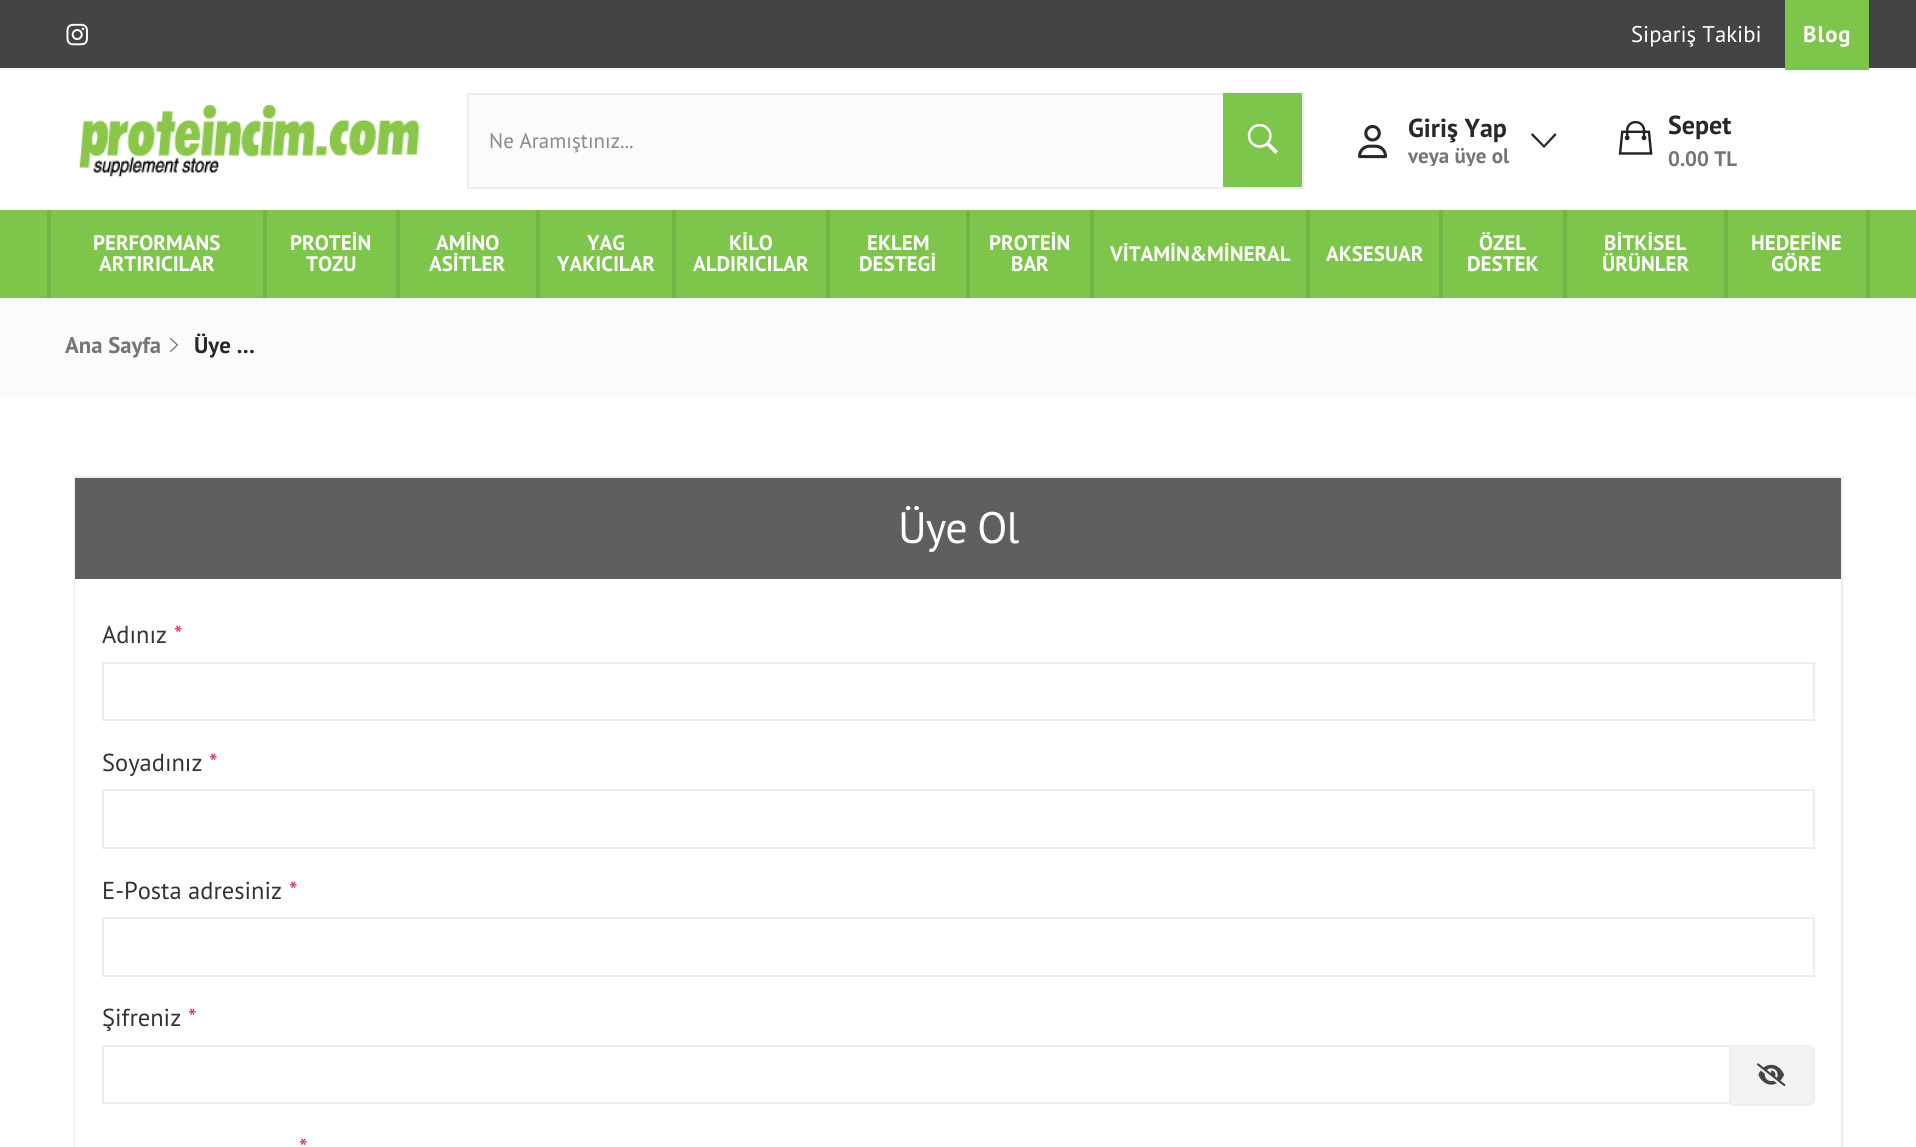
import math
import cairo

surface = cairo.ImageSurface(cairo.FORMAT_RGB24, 1916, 1147)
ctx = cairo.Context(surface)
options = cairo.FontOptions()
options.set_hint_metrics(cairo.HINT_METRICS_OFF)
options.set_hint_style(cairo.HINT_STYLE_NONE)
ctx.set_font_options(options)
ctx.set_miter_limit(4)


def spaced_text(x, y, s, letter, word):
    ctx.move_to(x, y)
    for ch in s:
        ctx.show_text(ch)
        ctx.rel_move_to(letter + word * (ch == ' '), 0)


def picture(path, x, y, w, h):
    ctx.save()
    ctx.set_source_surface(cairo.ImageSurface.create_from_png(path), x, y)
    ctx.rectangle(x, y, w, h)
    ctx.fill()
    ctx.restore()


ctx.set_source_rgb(1, 1, 1)
ctx.paint()
ctx.set_source_rgb(0.267, 0.267, 0.267)
ctx.rectangle(0, 0, 1916, 68)
ctx.fill()
ctx.set_source_rgb(0.969, 0.969, 0.969)
ctx.rectangle(0, 68, 1916, 2)
ctx.fill()
picture("img1.png", 66, 23, 22, 23)
ctx.select_font_face("PT Sans")
ctx.set_font_size(22.75)
ctx.set_source_rgb(1, 1, 1)
ctx.move_to(1631, 42)
ctx.show_text("Sipariş Takibi")
ctx.set_source_rgb(0.494, 0.773, 0.294)
ctx.rectangle(1785, 0, 84, 70)
ctx.fill()
ctx.select_font_face("PT Sans", cairo.FONT_SLANT_NORMAL, cairo.FONT_WEIGHT_BOLD)
ctx.set_source_rgb(1, 1, 1)
spaced_text(1803, 42, "Blog", 1, 0)
picture("img2.png", 78, 105, 342, 72)
ctx.rectangle(468, 94, 835, 94)
ctx.set_source_rgb(0.922, 0.929, 0.945)
ctx.stroke()
ctx.set_source_rgb(0.984, 0.984, 0.984)
ctx.rectangle(469, 95, 754, 92)
ctx.fill()
ctx.select_font_face("PT Sans")
ctx.set_font_size(21)
ctx.set_source_rgb(0.541, 0.541, 0.541)
ctx.move_to(489, 148)
ctx.show_text("Ne Aramıştınız...")
ctx.set_source_rgb(0.494, 0.773, 0.294)
ctx.rectangle(1223, 93, 79, 94)
ctx.fill()
picture("img3.png", 1247, 123, 31, 31)
picture("img4.png", 1358, 124, 30, 35)
ctx.select_font_face("PT Sans", cairo.FONT_SLANT_NORMAL, cairo.FONT_WEIGHT_BOLD)
ctx.set_font_size(26)
ctx.set_source_rgb(0.157, 0.157, 0.157)
ctx.move_to(1408, 137)
ctx.show_text("Giriş Yap")
ctx.save()
ctx.rectangle(1400, 114, 119, 52)
ctx.clip()
ctx.set_font_size(21)
ctx.set_source_rgb(0.459, 0.459, 0.459)
ctx.move_to(1408, 163)
ctx.show_text("veya üye ol")
ctx.restore()
ctx.new_path()
ctx.move_to(1555, 133)
ctx.line_to(1556.5, 135)
ctx.line_to(1544, 148)
ctx.line_to(1531, 135)
ctx.line_to(1532.5, 133)
ctx.line_to(1544, 145)
ctx.close_path()
ctx.fill()
picture("img5.png", 1618, 121, 35, 34)
ctx.move_to(1668, 134)
ctx.show_text("Sepet")
ctx.set_font_size(21)
ctx.set_source_rgb(0.459, 0.459, 0.459)
ctx.move_to(1668, 166)
ctx.show_text("0.00 TL")
ctx.set_source_rgb(0.494, 0.773, 0.294)
ctx.rectangle(0, 210, 1916, 88)
ctx.fill()
ctx.set_source_rgb(0.451, 0.71, 0.267)
ctx.rectangle(263, 210, 4, 88)
ctx.fill()
ctx.rectangle(47, 210, 4, 88)
ctx.fill()
ctx.set_source_rgb(1, 1, 1)
ctx.move_to(93, 250)
ctx.show_text("PERFORMANS")
ctx.move_to(99, 271)
ctx.show_text("ARTIRICILAR")
ctx.set_source_rgb(0.451, 0.71, 0.267)
ctx.rectangle(396, 210, 4, 88)
ctx.fill()
ctx.set_source_rgb(1, 1, 1)
ctx.move_to(290, 250)
ctx.show_text("PROTEİN")
ctx.move_to(306, 271)
ctx.show_text("TOZU")
ctx.set_source_rgb(0.451, 0.71, 0.267)
ctx.rectangle(536, 210, 4, 88)
ctx.fill()
ctx.set_source_rgb(1, 1, 1)
ctx.move_to(436, 250)
ctx.show_text("AMİNO")
ctx.move_to(429, 271)
ctx.show_text("ASİTLER")
ctx.set_source_rgb(0.451, 0.71, 0.267)
ctx.rectangle(672, 210, 4, 88)
ctx.fill()
ctx.set_source_rgb(1, 1, 1)
ctx.move_to(587, 250)
ctx.show_text("YAG")
ctx.move_to(557, 271)
ctx.show_text("YAKICILAR")
ctx.set_source_rgb(0.451, 0.71, 0.267)
ctx.rectangle(826, 210, 4, 88)
ctx.fill()
ctx.set_source_rgb(1, 1, 1)
ctx.move_to(729, 250)
ctx.show_text("KİLO")
ctx.move_to(693, 271)
ctx.show_text("ALDIRICILAR")
ctx.set_source_rgb(0.451, 0.71, 0.267)
ctx.rectangle(966, 210, 4, 88)
ctx.fill()
ctx.set_source_rgb(1, 1, 1)
ctx.move_to(867, 250)
ctx.show_text("EKLEM")
ctx.move_to(859, 271)
ctx.show_text("DESTEGİ")
ctx.set_source_rgb(0.451, 0.71, 0.267)
ctx.rectangle(1090, 210, 4, 88)
ctx.fill()
ctx.set_source_rgb(1, 1, 1)
ctx.move_to(989, 250)
ctx.show_text("PROTEİN")
ctx.move_to(1011, 271)
ctx.show_text("BAR")
ctx.set_source_rgb(0.451, 0.71, 0.267)
ctx.rectangle(1306, 210, 4, 88)
ctx.fill()
ctx.set_source_rgb(1, 1, 1)
ctx.move_to(1110, 261)
ctx.show_text("VİTAMİN&MİNERAL")
ctx.set_source_rgb(0.451, 0.71, 0.267)
ctx.rectangle(1439, 210, 4, 88)
ctx.fill()
ctx.set_source_rgb(1, 1, 1)
ctx.move_to(1326, 261)
ctx.show_text("AKSESUAR")
ctx.set_source_rgb(0.451, 0.71, 0.267)
ctx.rectangle(1563, 210, 4, 88)
ctx.fill()
ctx.set_source_rgb(1, 1, 1)
ctx.move_to(1479, 250)
ctx.show_text("ÖZEL")
ctx.move_to(1467, 271)
ctx.show_text("DESTEK")
ctx.set_source_rgb(0.451, 0.71, 0.267)
ctx.rectangle(1724, 210, 4, 88)
ctx.fill()
ctx.set_source_rgb(1, 1, 1)
ctx.move_to(1604, 250)
ctx.show_text("BİTKİSEL")
ctx.move_to(1602, 271)
ctx.show_text("ÜRÜNLER")
ctx.set_source_rgb(0.451, 0.71, 0.267)
ctx.rectangle(1866, 210, 4, 88)
ctx.fill()
ctx.set_source_rgb(1, 1, 1)
ctx.move_to(1751, 250)
ctx.show_text("HEDEFİNE")
ctx.move_to(1771, 271)
ctx.show_text("GÖRE")
ctx.set_source_rgb(0.984, 0.984, 0.984)
ctx.rectangle(0, 298, 1916, 100)
ctx.fill()
ctx.set_font_size(22.75)
ctx.set_source_rgb(0.459, 0.459, 0.459)
ctx.move_to(65, 353)
ctx.show_text("Ana Sayfa")
picture("img6.png", 169, 338, 10, 14)
ctx.set_source_rgb(0.157, 0.157, 0.157)
ctx.move_to(194, 353)
ctx.show_text("Üye …")
ctx.rectangle(75, 477, 1767, 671)
ctx.set_source_rgb(0.933, 0.933, 0.933)
ctx.stroke()
ctx.set_source_rgb(0.365, 0.373, 0.38)
ctx.rectangle(75, 478, 1766, 101)
ctx.fill()
ctx.select_font_face("PT Sans")
ctx.set_font_size(44)
ctx.set_source_rgb(1, 1, 1)
spaced_text(898, 543, "Üye Ol", -1, 0)
ctx.rectangle(75, 579, 1, 568)
ctx.fill()
ctx.set_font_size(24.5)
ctx.set_source_rgb(0.2, 0.2, 0.2)
ctx.move_to(102, 643)
ctx.show_text("Adınız")
ctx.set_source_rgb(0.8, 0.2, 0.333)
ctx.move_to(174, 643)
ctx.show_text("*")
ctx.rectangle(103, 663, 1711, 57)
ctx.set_source_rgb(0.933, 0.933, 0.933)
ctx.stroke()
ctx.set_source_rgb(0.2, 0.2, 0.2)
ctx.move_to(102, 771)
ctx.show_text("Soyadınız")
ctx.set_source_rgb(0.8, 0.2, 0.333)
ctx.move_to(209, 771)
ctx.show_text("*")
ctx.rectangle(103, 790, 1711, 58)
ctx.set_source_rgb(0.933, 0.933, 0.933)
ctx.stroke()
ctx.set_source_rgb(0.2, 0.2, 0.2)
ctx.move_to(102, 899)
ctx.show_text("E-Posta adresiniz")
ctx.set_source_rgb(0.8, 0.2, 0.333)
ctx.move_to(289, 899)
ctx.show_text("*")
ctx.rectangle(103, 918, 1711, 58)
ctx.set_source_rgb(0.933, 0.933, 0.933)
ctx.stroke()
ctx.set_source_rgb(0.2, 0.2, 0.2)
ctx.move_to(102, 1026)
ctx.show_text("Şifreniz")
ctx.set_source_rgb(0.8, 0.2, 0.333)
ctx.move_to(188, 1026)
ctx.show_text("*")
ctx.rectangle(103, 1046, 1627, 57)
ctx.set_source_rgb(0.933, 0.933, 0.933)
ctx.stroke()
ctx.set_source_rgb(0.953, 0.949, 0.949)
ctx.new_path()
ctx.move_to(1731, 1045)
ctx.line_to(1808, 1045)
ctx.curve_to(1812, 1045, 1815, 1048, 1815, 1052)
ctx.line_to(1815, 1099)
ctx.curve_to(1815, 1103, 1812, 1106, 1808, 1106)
ctx.line_to(1731, 1106)
ctx.close_path()
ctx.fill()
ctx.set_source_rgb(0.933, 0.933, 0.933)
ctx.set_fill_rule(cairo.FILL_RULE_EVEN_ODD)
ctx.new_path()
ctx.move_to(1731, 1045)
ctx.line_to(1808, 1045)
ctx.curve_to(1812, 1045, 1815, 1048, 1815, 1052)
ctx.line_to(1815, 1099)
ctx.curve_to(1815, 1103, 1812, 1106, 1808, 1106)
ctx.line_to(1731, 1106)
ctx.close_path()
ctx.move_to(1731, 1046)
ctx.line_to(1808, 1046)
ctx.curve_to(1811, 1046, 1813, 1049, 1813, 1052)
ctx.line_to(1813, 1099)
ctx.curve_to(1813, 1102, 1811, 1104, 1808, 1104)
ctx.line_to(1731, 1104)
ctx.close_path()
ctx.fill()
picture("img7.png", 1757, 1063, 29, 23)
ctx.set_source_rgb(0.8, 0.2, 0.333)
ctx.move_to(299, 1156)
ctx.show_text("*")
surface.write_to_png("page.png")
